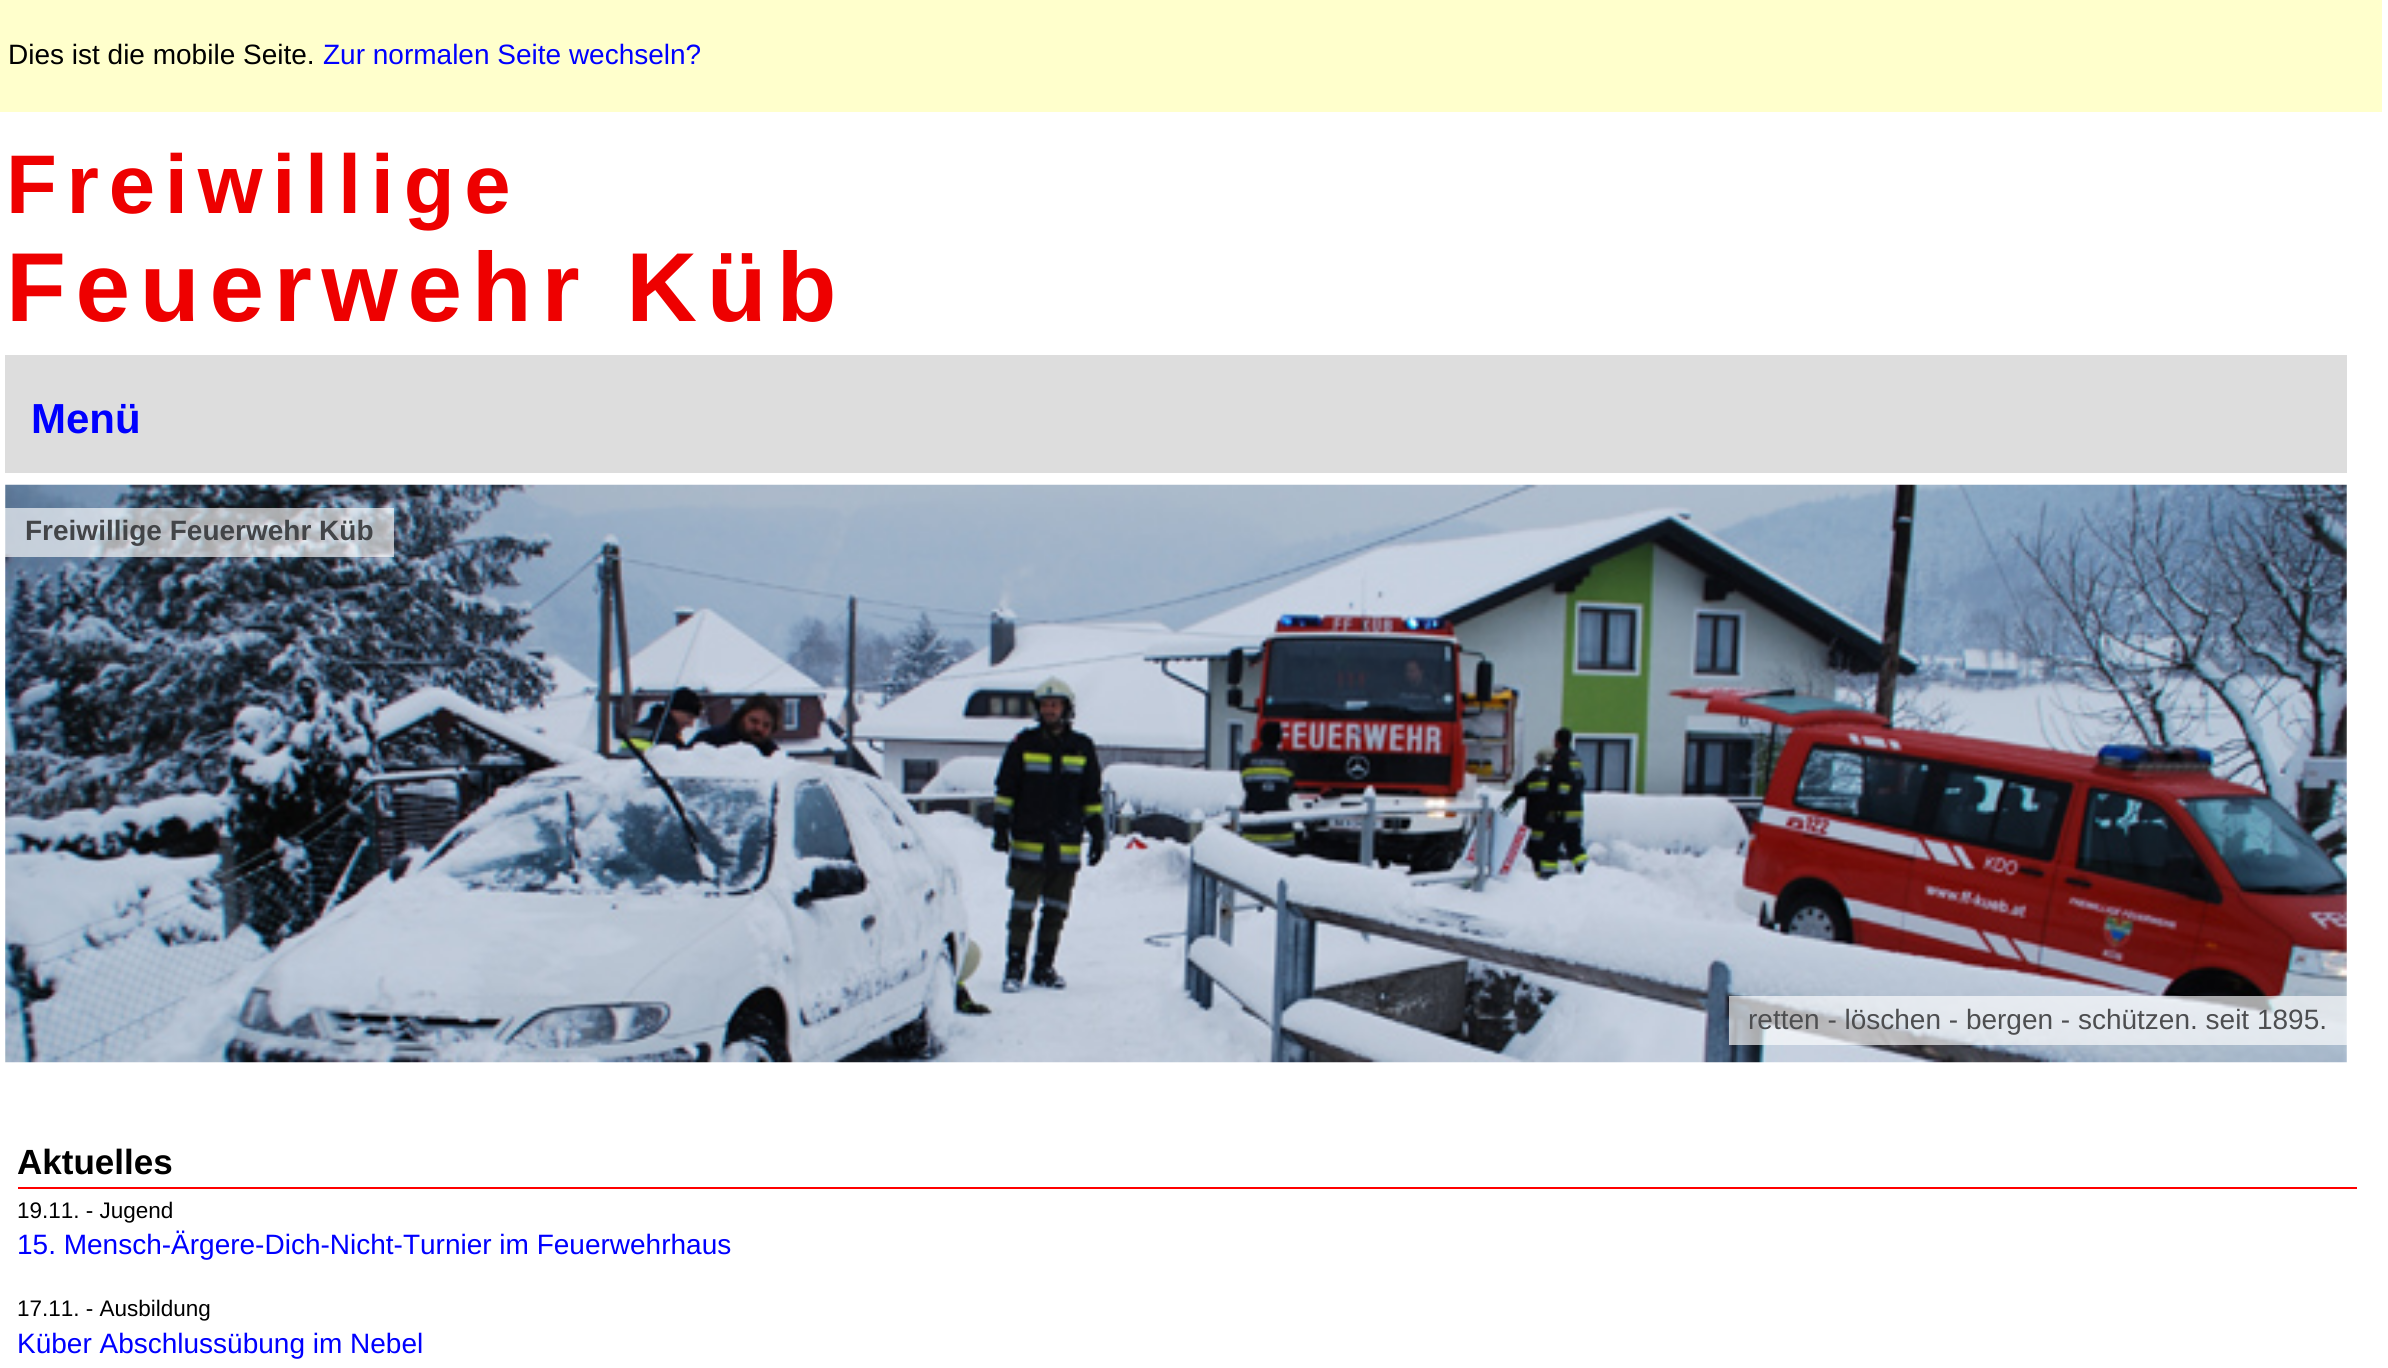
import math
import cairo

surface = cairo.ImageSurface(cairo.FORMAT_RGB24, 2388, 1368)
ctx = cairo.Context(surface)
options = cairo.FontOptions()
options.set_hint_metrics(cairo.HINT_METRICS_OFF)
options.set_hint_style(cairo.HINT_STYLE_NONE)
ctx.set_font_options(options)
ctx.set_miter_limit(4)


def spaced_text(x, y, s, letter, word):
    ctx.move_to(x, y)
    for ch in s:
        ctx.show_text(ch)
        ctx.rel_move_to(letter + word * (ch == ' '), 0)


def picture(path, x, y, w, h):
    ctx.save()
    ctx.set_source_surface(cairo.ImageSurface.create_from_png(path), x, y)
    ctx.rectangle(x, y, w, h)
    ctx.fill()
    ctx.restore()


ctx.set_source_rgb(1, 1, 1)
ctx.paint()
ctx.set_source_rgb(1, 1, 0.8)
ctx.rectangle(0, 0, 2382, 112)
ctx.fill()
ctx.select_font_face("Liberation Sans")
ctx.set_font_size(28)
ctx.set_source_rgb(0, 0, 0)
ctx.move_to(8, 64)
ctx.show_text("Dies ist die mobile Seite.")
ctx.set_source_rgb(0, 0, 1)
ctx.move_to(323, 64)
ctx.show_text("Zur normalen Seite wechseln?")
ctx.select_font_face("Liberation Sans", cairo.FONT_SLANT_NORMAL, cairo.FONT_WEIGHT_BOLD)
ctx.set_font_size(83.25)
ctx.set_source_rgb(0.933, 0, 0)
spaced_text(6, 213, "Freiwillige", 9.75, 0)
ctx.set_font_size(98)
spaced_text(6, 321, "Feuerwehr Küb", 9.75, 0)
ctx.set_source_rgb(0.867, 0.867, 0.867)
ctx.rectangle(5, 355, 2342, 118)
ctx.fill()
ctx.set_font_size(42)
ctx.set_source_rgb(0, 0, 1)
ctx.move_to(31, 433)
ctx.show_text("Menü")
picture("img1.png", 5, 484, 2342, 579)
ctx.set_source_rgba(1, 1, 1, 0.65)
ctx.rectangle(5, 508, 389, 49)
ctx.fill()
ctx.set_font_size(28)
ctx.set_source_rgb(0.263, 0.271, 0.282)
ctx.move_to(25, 540)
ctx.show_text("Freiwillige Feuerwehr Küb")
ctx.set_source_rgba(1, 1, 1, 0.65)
ctx.rectangle(1729, 996, 618, 49)
ctx.fill()
ctx.select_font_face("Liberation Sans")
ctx.set_source_rgb(0.302, 0.306, 0.314)
ctx.move_to(1748, 1029)
ctx.show_text("retten - löschen - bergen - schützen. seit 1895.")
ctx.set_source_rgb(1, 0, 0)
ctx.rectangle(18, 1187, 2339, 2)
ctx.fill()
ctx.select_font_face("Liberation Sans", cairo.FONT_SLANT_NORMAL, cairo.FONT_WEIGHT_BOLD)
ctx.set_font_size(35)
ctx.set_source_rgb(0, 0, 0)
ctx.move_to(17, 1174)
ctx.show_text("Aktuelles")
ctx.select_font_face("Liberation Sans")
ctx.set_font_size(22.5)
ctx.move_to(17, 1218)
ctx.show_text("19.11. - Jugend")
ctx.set_font_size(28)
ctx.set_source_rgb(0, 0, 1)
ctx.move_to(17, 1254)
ctx.show_text("15. Mensch-Ärgere-Dich-Nicht-Turnier im Feuerwehrhaus")
ctx.set_font_size(22.5)
ctx.set_source_rgb(0, 0, 0)
ctx.move_to(17, 1316)
ctx.show_text("17.11. - Ausbildung")
ctx.set_font_size(28)
ctx.set_source_rgb(0, 0, 1)
ctx.move_to(17, 1353)
ctx.show_text("Küber Abschlussübung im Nebel")
surface.write_to_png("page.png")
